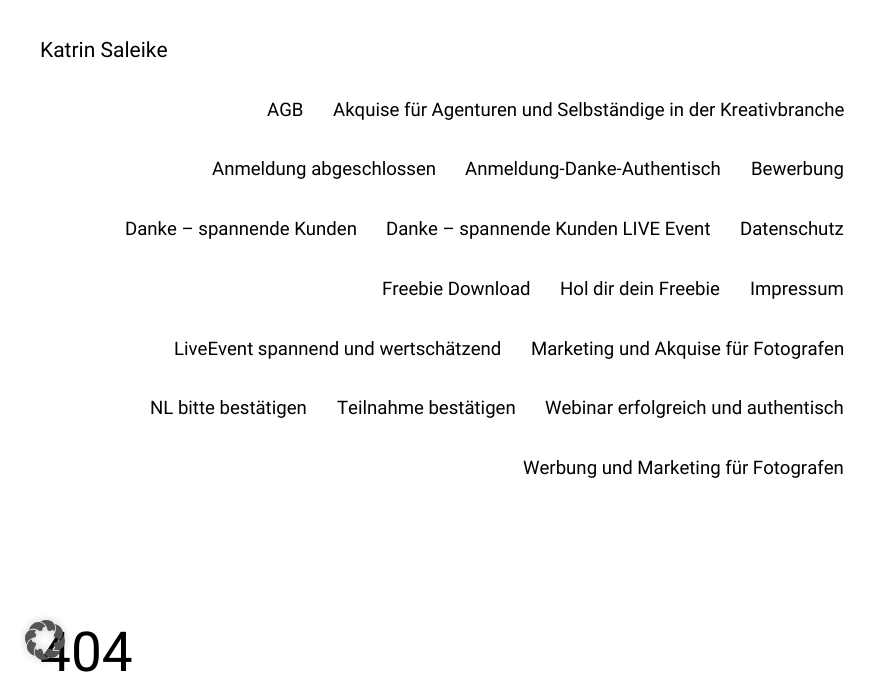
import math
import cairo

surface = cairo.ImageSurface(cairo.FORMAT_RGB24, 883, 684)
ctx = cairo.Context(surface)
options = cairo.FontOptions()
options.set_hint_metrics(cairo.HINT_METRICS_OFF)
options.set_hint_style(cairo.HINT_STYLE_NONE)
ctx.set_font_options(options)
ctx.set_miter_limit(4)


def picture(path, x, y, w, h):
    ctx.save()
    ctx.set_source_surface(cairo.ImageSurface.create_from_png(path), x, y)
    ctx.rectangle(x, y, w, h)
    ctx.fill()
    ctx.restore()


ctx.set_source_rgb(1, 1, 1)
ctx.paint()
ctx.select_font_face("Roboto")
ctx.set_font_size(21)
ctx.set_source_rgb(0, 0, 0)
ctx.move_to(40, 57)
ctx.show_text("Katrin Saleike")
ctx.set_font_size(18.6)
ctx.move_to(267, 116)
ctx.show_text("AGB")
ctx.move_to(333, 116)
ctx.show_text("Akquise für Agenturen und Selbständige in der Kreativbranche")
ctx.move_to(212, 175)
ctx.show_text("Anmeldung abgeschlossen")
ctx.move_to(465, 175)
ctx.show_text("Anmeldung-Danke-Authentisch")
ctx.move_to(751, 175)
ctx.show_text("Bewerbung")
ctx.move_to(125, 235)
ctx.show_text("Danke – spannende Kunden")
ctx.move_to(386, 235)
ctx.show_text("Danke – spannende Kunden LIVE Event")
ctx.move_to(740, 235)
ctx.show_text("Datenschutz")
ctx.move_to(382, 295)
ctx.show_text("Freebie Download")
ctx.move_to(560, 295)
ctx.show_text("Hol dir dein Freebie")
ctx.move_to(750, 295)
ctx.show_text("Impressum")
ctx.move_to(174, 355)
ctx.show_text("LiveEvent spannend und wertschätzend")
ctx.move_to(531, 355)
ctx.show_text("Marketing und Akquise für Fotografen")
ctx.move_to(150, 414)
ctx.show_text("NL bitte bestätigen")
ctx.move_to(337, 414)
ctx.show_text("Teilnahme bestätigen")
ctx.move_to(545, 414)
ctx.show_text("Webinar erfolgreich und authentisch")
ctx.move_to(523, 474)
ctx.show_text("Werbung und Marketing für Fotografen")
ctx.set_font_size(55)
ctx.move_to(40, 671)
ctx.show_text("404")
picture("img1.png", 20, 615, 50, 50)
surface.write_to_png("page.png")
